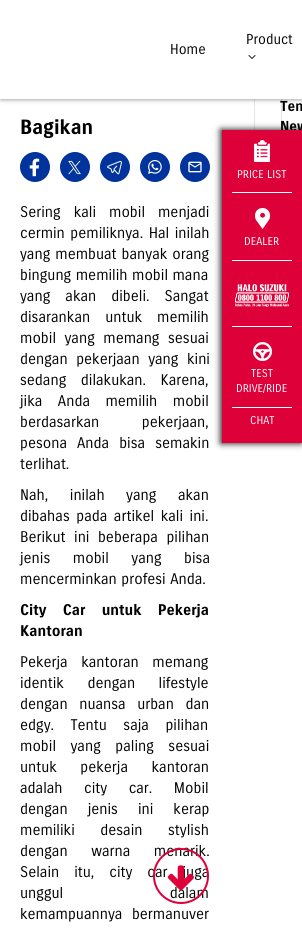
import math
import cairo

surface = cairo.ImageSurface(cairo.FORMAT_RGB24, 302, 933)
ctx = cairo.Context(surface)
options = cairo.FontOptions()
options.set_hint_metrics(cairo.HINT_METRICS_OFF)
options.set_hint_style(cairo.HINT_STYLE_NONE)
ctx.set_font_options(options)
ctx.set_miter_limit(4)


def spaced_text(x, y, s, letter, word):
    ctx.move_to(x, y)
    for ch in s:
        ctx.show_text(ch)
        ctx.rel_move_to(letter + word * (ch == ' '), 0)


def round_rect(x, y, w, h, r):
    ctx.new_sub_path()
    for i, (u, v) in enumerate([(x + w - r, y + h - r), (x + r, y + h - r), (x + r, y + r), (x + w - r, y + r)]):
        ctx.arc(u, v, r, i * math.pi / 2, (i + 1) * math.pi / 2)
    ctx.close_path()


def shadow(x, y, w, h, r, blur, alpha):
    ctx.push_group_with_content(cairo.CONTENT_ALPHA)
    ctx.set_operator(cairo.OPERATOR_SOURCE)
    for i in range(15, -16, -2):
        e = blur * i / 6
        if min(w, h) + 2 * e > 0:
            ctx.set_source_rgba(0, 0, 0, alpha * math.erfc((i - 1) / 8.5) / 2)
            round_rect(x - e, y - e, w + 2 * e, h + 2 * e, max(0, min(r + e + blur * .6, min(w, h) / 2 + e)))
            ctx.fill()
    ctx.mask(ctx.pop_group())


def picture(path, x, y, w, h):
    ctx.save()
    ctx.set_source_surface(cairo.ImageSurface.create_from_png(path), x, y)
    ctx.rectangle(x, y, w, h)
    ctx.fill()
    ctx.restore()


ctx.set_source_rgb(1, 1, 1)
ctx.paint()
ctx.rectangle(254.5, -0.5, 27, 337)
ctx.set_source_rgb(0.89, 0.894, 0.91)
ctx.set_line_width(1)
ctx.stroke()
ctx.set_source_rgb(0, 0, 0)
shadow(1, 0, 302, 99, 0, 2.5, 0.5)
ctx.set_source_rgb(1, 1, 1)
ctx.rectangle(0, 0, 302, 99)
ctx.fill()
ctx.select_font_face("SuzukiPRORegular")
ctx.set_font_size(14)
ctx.set_source_rgb(0, 0, 0)
ctx.move_to(246, 44)
ctx.show_text("Product")
ctx.new_path()
ctx.move_to(255, 55.5)
ctx.line_to(252, 58.5)
ctx.line_to(249, 55.5)
ctx.set_source_rgb(0.2, 0.2, 0.2)
ctx.set_line_width(1.1)
ctx.set_line_cap(cairo.LINE_CAP_ROUND)
ctx.set_line_join(cairo.LINE_JOIN_ROUND)
ctx.stroke()
ctx.set_source_rgb(0, 0, 0)
ctx.move_to(170, 54)
ctx.show_text("Home")
ctx.select_font_face("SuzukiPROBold", cairo.FONT_SLANT_NORMAL, cairo.FONT_WEIGHT_BOLD)
ctx.set_font_size(20)
ctx.move_to(20, 134)
ctx.show_text("Bagikan")
ctx.set_source_rgb(0, 0.2, 0.608)
ctx.new_path()
ctx.arc(35, 167, 15, 0, 2 * math.pi)
ctx.fill()
picture("img1.png", 29, 158, 11, 19)
ctx.arc(75, 167, 15, 0, 2 * math.pi)
ctx.fill()
picture("img2.png", 68, 160, 13, 15)
ctx.arc(115, 167, 15, 0, 2 * math.pi)
ctx.fill()
picture("img3.png", 107, 160, 15, 15)
ctx.arc(155, 167, 15, 0, 2 * math.pi)
ctx.fill()
picture("img4.png", 148, 160, 14, 14)
ctx.arc(195, 167, 15, 0, 2 * math.pi)
ctx.fill()
picture("img5.png", 188, 161, 14, 12)
ctx.select_font_face("SuzukiPRORegular")
ctx.set_font_size(15)
ctx.set_source_rgb(0, 0, 0)
spaced_text(20, 217, "Sering kali mobil menjadi", 0, 8.5)
spaced_text(20, 238, "cermin pemiliknya. Hal inilah", 0, 1)
spaced_text(20, 259, "yang membuat banyak orang", 0, 0.5)
ctx.move_to(20, 280)
ctx.show_text("bingung memilih mobil mana")
spaced_text(20, 301, "yang akan dibeli. Sangat", 0, 10.5)
spaced_text(20, 322, "disarankan untuk memilih", 0, 10.5)
spaced_text(20, 343, "mobil yang memang sesuai", 0, 4)
spaced_text(20, 364, "dengan pekerjaan yang kini", 0, 4)
spaced_text(20, 385, "sedang dilakukan. Karena,", 0, 10)
spaced_text(20, 406, "jika Anda memilih mobil", 0, 11)
spaced_text(20, 427, "berdasarkan pekerjaan,", 0, 38)
spaced_text(20, 448, "pesona Anda bisa semakin", 0, 5.5)
ctx.move_to(20, 469)
ctx.show_text("terlihat.")
spaced_text(20, 500, "Nah, inilah yang akan", 0, 17)
spaced_text(20, 521, "dibahas pada artikel kali ini.", 0, 2)
spaced_text(20, 542, "Berikut ini beberapa pilihan", 0, 4)
spaced_text(20, 563, "jenis mobil yang bisa", 0, 18)
ctx.move_to(20, 584)
ctx.show_text("mencerminkan profesi Anda.")
ctx.select_font_face("SuzukiPROBold", cairo.FONT_SLANT_NORMAL, cairo.FONT_WEIGHT_BOLD)
spaced_text(20, 615, "City Car untuk Pekerja", 0, 12)
ctx.move_to(20, 636)
ctx.show_text("Kantoran")
ctx.select_font_face("SuzukiPRORegular")
spaced_text(20, 667, "Pekerja kantoran memang", 0, 9)
spaced_text(20, 688, "identik dengan lifestyle", 0, 19)
spaced_text(20, 709, "dengan nuansa urban dan", 0, 7)
spaced_text(20, 730, "edgy. Tentu saja pilihan", 0, 12)
spaced_text(20, 751, "mobil yang paling sesuai", 0, 10)
spaced_text(20, 772, "untuk pekerja kantoran", 0, 19)
spaced_text(20, 793, "adalah city car. Mobil", 0, 17)
spaced_text(20, 814, "dengan jenis ini kerap", 0, 15.5)
spaced_text(20, 835, "memiliki desain stylish", 0, 21)
spaced_text(20, 856, "dengan warna menarik.", 0, 19)
spaced_text(20, 877, "Selain itu, city car juga", 0, 10.5)
spaced_text(20, 898, "unggul dalam", 0, 102)
spaced_text(20, 919, "kemampuannya bermanuver", 0, 5)
ctx.select_font_face("SuzukiPROBold", cairo.FONT_SLANT_NORMAL, cairo.FONT_WEIGHT_BOLD)
ctx.set_font_size(14)
ctx.move_to(280, 111)
ctx.show_text("Ten")
ctx.move_to(280, 131)
ctx.show_text("New")
ctx.new_path()
ctx.arc(181, 876, 27, 0, 2 * math.pi)
ctx.set_source_rgb(0.871, 0, 0.224)
ctx.set_line_width(2)
ctx.set_line_cap(cairo.LINE_CAP_BUTT)
ctx.set_line_join(cairo.LINE_JOIN_MITER)
ctx.stroke()
picture("img6.png", 167, 865, 27, 26)
ctx.set_source_rgb(0, 0, 0)
shadow(221, 130, 80, 313, 0, 3.5, 1)
ctx.set_source_rgb(0.871, 0, 0.224)
ctx.rectangle(222, 130, 80, 313)
ctx.fill()
picture("img7.png", 254, 140, 16, 22)
ctx.select_font_face("SuzukiPRORegular")
ctx.set_font_size(11)
ctx.set_source_rgb(1, 1, 1)
ctx.move_to(237, 178)
ctx.show_text("PRICE LIST")
ctx.rectangle(232, 192, 60, 1)
ctx.fill()
picture("img8.png", 255, 208, 15, 21)
ctx.move_to(244, 245)
ctx.show_text("DEALER")
ctx.rectangle(232, 260, 60, 1)
ctx.fill()
picture("img9.png", 235, 284, 54, 24)
ctx.rectangle(232, 326, 60, 1)
ctx.fill()
picture("img10.png", 253, 342, 19, 19)
ctx.move_to(251, 377)
ctx.show_text("TEST")
ctx.move_to(236, 392)
ctx.show_text("DRIVE/RIDE")
ctx.rectangle(232, 407, 60, 1)
ctx.fill()
ctx.move_to(250, 424)
ctx.show_text("CHAT")
surface.write_to_png("page.png")
